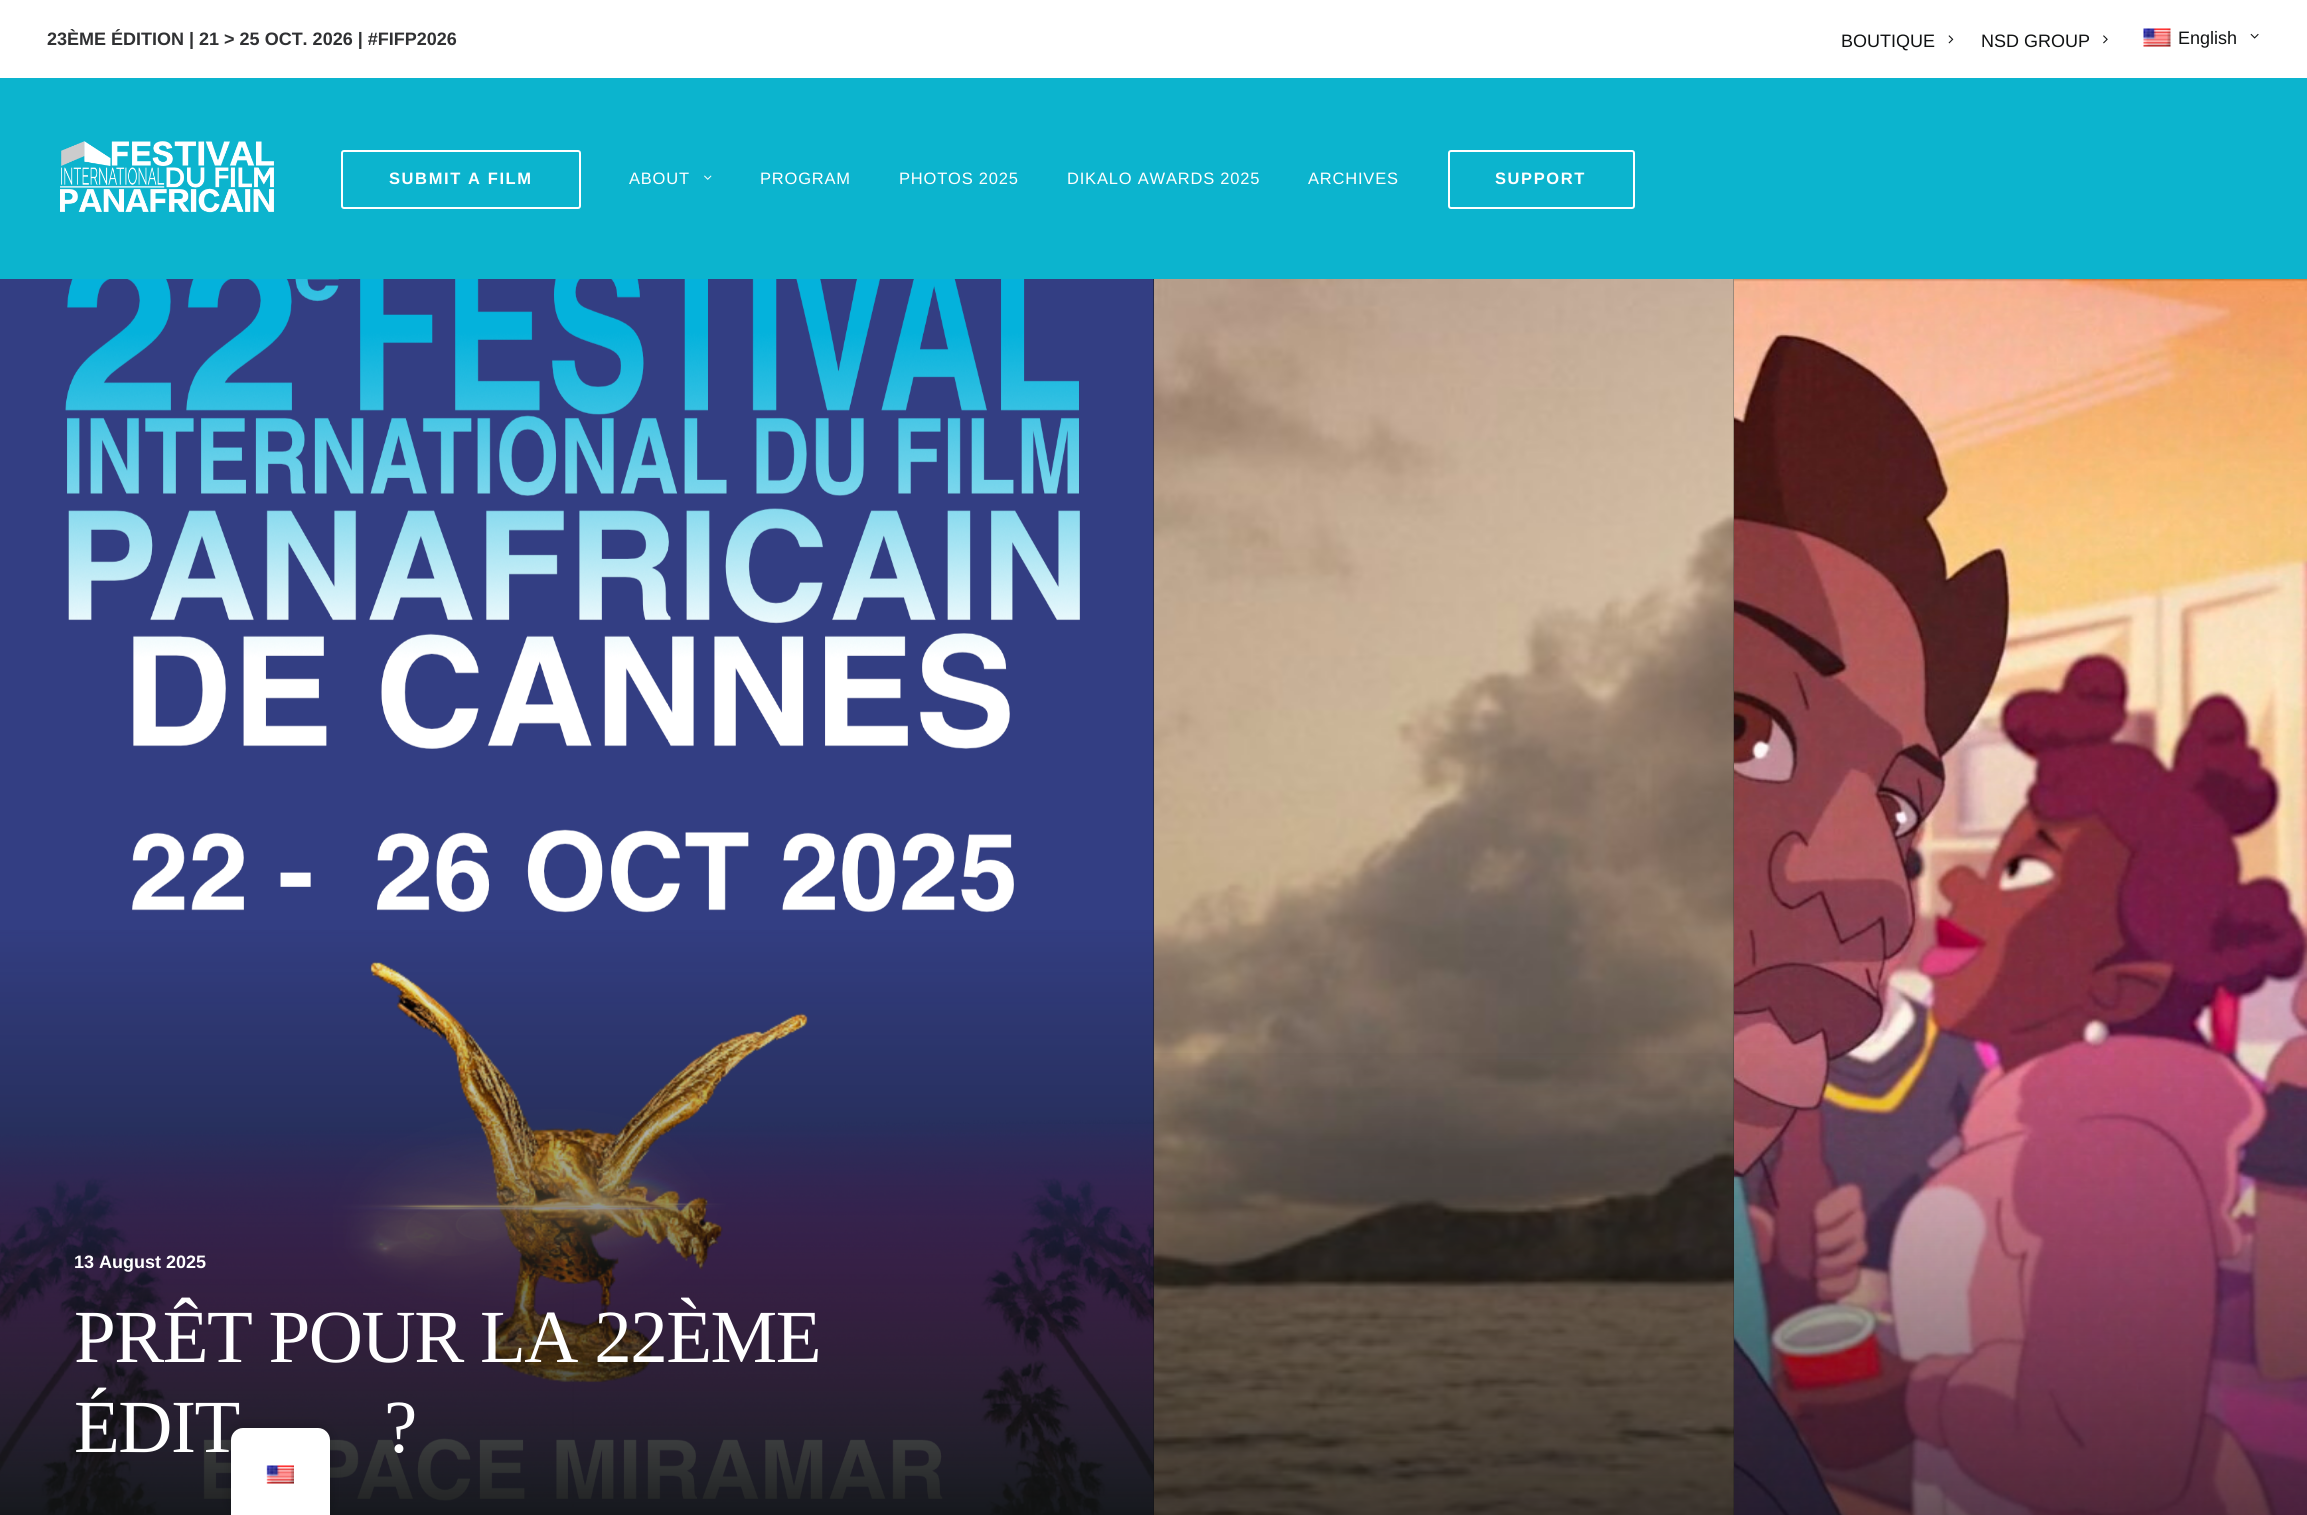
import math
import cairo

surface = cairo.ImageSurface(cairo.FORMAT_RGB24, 2307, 1515)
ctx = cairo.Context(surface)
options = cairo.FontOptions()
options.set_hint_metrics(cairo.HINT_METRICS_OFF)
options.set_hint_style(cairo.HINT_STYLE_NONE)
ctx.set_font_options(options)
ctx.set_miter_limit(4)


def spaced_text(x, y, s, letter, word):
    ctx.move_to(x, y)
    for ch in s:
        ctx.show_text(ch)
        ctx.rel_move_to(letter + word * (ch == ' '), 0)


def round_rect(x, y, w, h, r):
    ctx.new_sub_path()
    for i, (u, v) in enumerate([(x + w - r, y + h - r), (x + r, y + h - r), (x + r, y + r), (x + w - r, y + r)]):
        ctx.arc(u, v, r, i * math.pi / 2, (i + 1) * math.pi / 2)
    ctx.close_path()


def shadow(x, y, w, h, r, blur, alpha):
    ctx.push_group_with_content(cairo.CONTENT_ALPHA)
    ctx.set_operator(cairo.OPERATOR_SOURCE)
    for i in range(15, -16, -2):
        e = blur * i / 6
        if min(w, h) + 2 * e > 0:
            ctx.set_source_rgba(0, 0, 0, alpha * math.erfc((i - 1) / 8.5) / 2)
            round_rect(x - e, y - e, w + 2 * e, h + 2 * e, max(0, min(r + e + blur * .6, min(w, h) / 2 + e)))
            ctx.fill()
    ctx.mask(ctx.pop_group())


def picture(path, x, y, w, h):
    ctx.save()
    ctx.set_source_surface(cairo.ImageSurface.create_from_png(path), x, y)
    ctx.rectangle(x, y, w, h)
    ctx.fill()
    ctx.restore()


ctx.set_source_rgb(1, 1, 1)
ctx.paint()
ctx.select_font_face("Liberation Sans", cairo.FONT_SLANT_NORMAL, cairo.FONT_WEIGHT_BOLD)
ctx.set_font_size(18)
ctx.set_source_rgb(0.188, 0.192, 0.2)
ctx.move_to(47, 45)
ctx.show_text("23ÈME ÉDITION | 21 > 25 OCT. 2026 | #FIFP2026")
ctx.select_font_face("Liberation Sans")
ctx.set_source_rgb(0.063, 0.071, 0.075)
ctx.move_to(1841, 47)
ctx.show_text("BOUTIQUE")
picture("img1.png", 1948, 35, 6, 9)
ctx.move_to(1981, 47)
ctx.show_text("NSD GROUP")
picture("img2.png", 2103, 35, 5, 9)
picture("img3.png", 2143, 28, 28, 19)
ctx.move_to(2178, 44)
ctx.show_text("English")
picture("img4.png", 2250, 33, 9, 6)
ctx.set_source_rgb(0.047, 0.706, 0.808)
ctx.rectangle(0, 78, 2307, 201)
ctx.fill()
picture("img5.png", 60, 141, 214, 72)
round_rect(342, 151, 238, 57, 2)
ctx.set_source_rgb(1, 1, 1)
ctx.stroke()
ctx.select_font_face("Liberation Sans", cairo.FONT_SLANT_NORMAL, cairo.FONT_WEIGHT_BOLD)
ctx.set_font_size(16.5)
spaced_text(389, 184, "SUBMIT A FILM", 1.6, 0)
ctx.select_font_face("Liberation Sans")
spaced_text(629, 184, "ABOUT", 0.8, 0)
picture("img6.png", 704, 175, 8, 5)
spaced_text(760, 184, "PROGRAM", 0.8, 0)
spaced_text(899, 184, "PHOTOS 2025", 0.8, 0)
spaced_text(1067, 184, "DIKALO AWARDS 2025", 0.8, 0)
spaced_text(1308, 184, "ARCHIVES", 0.8, 0)
round_rect(1449, 151, 185, 57, 2)
ctx.stroke()
ctx.select_font_face("Liberation Sans", cairo.FONT_SLANT_NORMAL, cairo.FONT_WEIGHT_BOLD)
spaced_text(1495, 184, "SUPPORT", 1.6, 0)
ctx.set_source_rgb(0.063, 0.071, 0.075)
ctx.rectangle(572, 279, 1162, 1236)
ctx.fill()
picture("img7.png", 0, 279, 1154, 1236)
gradient = cairo.LinearGradient(573, 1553, 573, 279)
gradient.add_color_stop_rgba(0, 0.063, 0.071, 0.075, 1)
gradient.add_color_stop_rgba(0.5, 0.063, 0.071, 0.075, 0)
ctx.set_source(gradient)
ctx.rectangle(0, 930, 1154, 585)
ctx.fill()
ctx.set_font_size(18)
ctx.set_source_rgb(1, 1, 1)
ctx.move_to(74, 1268)
ctx.show_text("13 August 2025")
ctx.select_font_face("Liberation Serif")
ctx.set_font_size(75)
spaced_text(74, 1362, "PRÊT POUR LA 22ÈME", -1.5, 0)
spaced_text(74, 1452, "ÉDIT", -1.5, 0)
spaced_text(384, 1452, "?", -1.5, 0)
picture("img8.png", 1154, 279, 580, 1236)
gradient = cairo.LinearGradient(1444, 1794, 1444, 279)
gradient.add_color_stop_rgba(0, 0.063, 0.071, 0.075, 1)
gradient.add_color_stop_rgba(0.5, 0.063, 0.071, 0.075, 0)
ctx.set_source(gradient)
ctx.rectangle(1154, 1053, 580, 462)
ctx.fill()
picture("img9.png", 1734, 279, 573, 1236)
ctx.set_source_rgb(0, 0, 0)
shadow(231, 1428, 99, 87, 12, 6, 0.25)
ctx.set_source_rgb(1, 1, 1)
ctx.new_path()
ctx.move_to(243, 1428)
ctx.line_to(318, 1428)
ctx.curve_to(324.5, 1428, 330, 1433.5, 330, 1440)
ctx.line_to(330, 1515)
ctx.line_to(231, 1515)
ctx.line_to(231, 1440)
ctx.curve_to(231, 1433.5, 236.5, 1428, 243, 1428)
ctx.close_path()
ctx.fill()
picture("img10.png", 266, 1465, 28, 19)
surface.write_to_png("page.png")
